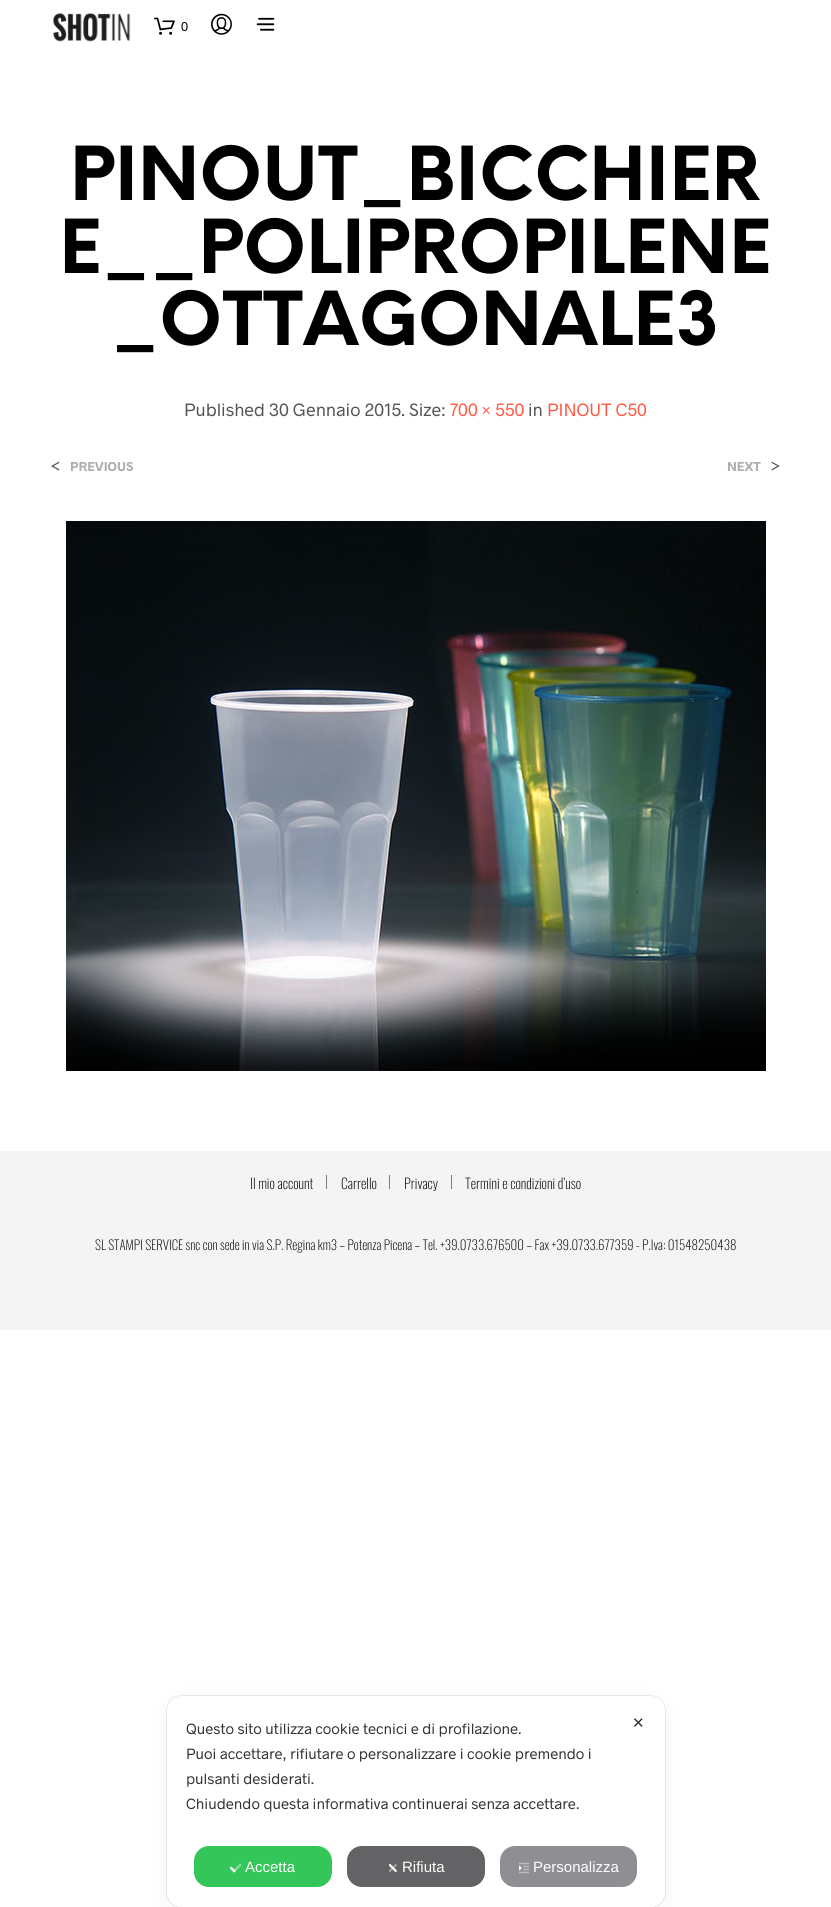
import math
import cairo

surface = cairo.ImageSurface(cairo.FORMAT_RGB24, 831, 1907)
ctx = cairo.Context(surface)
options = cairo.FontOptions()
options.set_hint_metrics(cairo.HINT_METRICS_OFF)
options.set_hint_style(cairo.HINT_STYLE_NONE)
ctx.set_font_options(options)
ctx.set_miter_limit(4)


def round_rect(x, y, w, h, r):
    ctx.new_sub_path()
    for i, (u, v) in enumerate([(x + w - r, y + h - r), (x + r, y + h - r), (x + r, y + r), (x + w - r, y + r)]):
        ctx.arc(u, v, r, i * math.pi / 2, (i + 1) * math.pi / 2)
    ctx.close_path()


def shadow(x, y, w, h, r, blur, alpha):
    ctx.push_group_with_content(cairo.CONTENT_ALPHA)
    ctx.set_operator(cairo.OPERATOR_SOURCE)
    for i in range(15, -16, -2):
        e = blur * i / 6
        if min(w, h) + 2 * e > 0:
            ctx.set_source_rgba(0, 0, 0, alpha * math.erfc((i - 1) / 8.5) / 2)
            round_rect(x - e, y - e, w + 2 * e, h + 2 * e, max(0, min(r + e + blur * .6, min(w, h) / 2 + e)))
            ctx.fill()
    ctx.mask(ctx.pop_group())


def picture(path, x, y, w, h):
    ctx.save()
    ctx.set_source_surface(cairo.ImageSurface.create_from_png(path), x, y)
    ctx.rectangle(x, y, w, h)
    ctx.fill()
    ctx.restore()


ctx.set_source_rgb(1, 1, 1)
ctx.paint()
picture("img1.png", 53, 13, 78, 29)
picture("img2.png", 154, 17, 21, 18)
ctx.select_font_face("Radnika")
ctx.set_font_size(13)
ctx.set_source_rgb(0, 0, 0)
ctx.move_to(181, 31)
ctx.show_text("0")
picture("img3.png", 211, 13, 21, 22)
picture("img4.png", 256, 17, 19, 14)
ctx.select_font_face("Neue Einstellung", cairo.FONT_SLANT_NORMAL, cairo.FONT_WEIGHT_BOLD)
ctx.set_font_size(72.6)
ctx.move_to(70, 200)
ctx.show_text("PINOUT_BICCHIER")
ctx.move_to(59, 273)
ctx.show_text("E__POLIPROPILENE")
ctx.move_to(111, 345)
ctx.show_text("_OTTAGONALE3")
ctx.select_font_face("Radnika")
ctx.set_font_size(18)
ctx.set_source_rgb(0.329, 0.329, 0.329)
ctx.move_to(184, 416)
ctx.show_text("Published 30 Gennaio 2015. Size:")
ctx.set_source_rgb(1, 0.349, 0.263)
ctx.move_to(450, 416)
ctx.show_text("700 × 550")
ctx.set_source_rgb(0.329, 0.329, 0.329)
ctx.move_to(528, 416)
ctx.show_text("in")
ctx.set_source_rgb(1, 0.349, 0.263)
ctx.move_to(547, 416)
ctx.show_text("PINOUT C50")
ctx.set_source_rgb(0.329, 0.329, 0.329)
ctx.move_to(50, 472)
ctx.show_text("<")
ctx.select_font_face("Radnika", cairo.FONT_SLANT_NORMAL, cairo.FONT_WEIGHT_BOLD)
ctx.set_font_size(13)
ctx.set_source_rgb(0.678, 0.678, 0.678)
ctx.move_to(70, 471)
ctx.show_text("PREVIOUS")
ctx.move_to(727, 471)
ctx.show_text("NEXT")
ctx.select_font_face("Radnika")
ctx.set_font_size(18)
ctx.set_source_rgb(0.329, 0.329, 0.329)
ctx.move_to(770, 472)
ctx.show_text(">")
picture("img5.png", 66, 521, 700, 550)
ctx.set_source_rgb(0.957, 0.957, 0.957)
ctx.rectangle(0, 1151, 831, 179)
ctx.fill()
ctx.select_font_face("Oswald ExtraLight")
ctx.set_font_size(14)
ctx.set_source_rgb(0, 0, 0)
ctx.move_to(250, 1189)
ctx.show_text("Il mio account")
ctx.set_source_rgb(0.478, 0.478, 0.478)
ctx.rectangle(326, 1175, 1, 14)
ctx.fill()
ctx.set_source_rgb(0, 0, 0)
ctx.move_to(341, 1189)
ctx.show_text("Carrello")
ctx.set_source_rgb(0.478, 0.478, 0.478)
ctx.rectangle(389, 1175, 1, 14)
ctx.fill()
ctx.set_source_rgb(0, 0, 0)
ctx.move_to(404, 1189)
ctx.show_text("Privacy")
ctx.set_source_rgb(0.478, 0.478, 0.478)
ctx.rectangle(451, 1175, 1, 14)
ctx.fill()
ctx.set_source_rgb(0, 0, 0)
ctx.move_to(465, 1189)
ctx.show_text("Termini e condizioni d’uso")
ctx.set_font_size(13)
ctx.move_to(95, 1250)
ctx.show_text("SL STAMPI SERVICE snc con sede in via S.P. Regina km3 – Potenza Picena – Tel. +39.0733.676500 – Fax +39.0733.677359 - P.Iva: 01548250438")
round_rect(166.5, 1695.5, 499, 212, 15.5)
ctx.set_source_rgb(0.922, 0.922, 0.922)
ctx.set_line_width(1)
ctx.stroke()
ctx.set_source_rgb(0, 0, 0)
shadow(167, 1702, 498, 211, 15, 12, 0.05)
ctx.set_source_rgb(1, 1, 1)
round_rect(167, 1696, 498, 211, 15)
ctx.fill()
ctx.select_font_face("Radnika")
ctx.set_font_size(15)
ctx.set_source_rgb(0.2, 0.2, 0.2)
ctx.move_to(186, 1734)
ctx.show_text("Questo sito utilizza cookie tecnici e di profilazione.")
ctx.move_to(186, 1759)
ctx.show_text("Puoi accettare, rifiutare o personalizzare i cookie premendo i")
ctx.move_to(186, 1784)
ctx.show_text("pulsanti desiderati.")
ctx.move_to(186, 1809)
ctx.show_text("Chiudendo questa informativa continuerai senza accettare.")
ctx.set_source_rgb(0.204, 0.776, 0.349)
round_rect(194, 1846, 138, 41, 15)
ctx.fill()
picture("img6.png", 230, 1863, 12, 10)
ctx.select_font_face("Liberation Sans")
ctx.set_source_rgb(1, 1, 1)
ctx.move_to(245, 1872)
ctx.show_text("Accetta")
ctx.set_source_rgb(0.388, 0.388, 0.4)
round_rect(347, 1846, 138, 41, 15)
ctx.fill()
picture("img7.png", 389, 1864, 8, 9)
ctx.set_source_rgb(1, 1, 1)
ctx.move_to(402, 1872)
ctx.show_text("Rifiuta")
ctx.set_source_rgb(0.557, 0.557, 0.576)
round_rect(500, 1846, 137, 41, 15)
ctx.fill()
picture("img8.png", 519, 1862, 10, 12)
ctx.set_source_rgb(1, 1, 1)
ctx.move_to(533, 1872)
ctx.show_text("Personalizza")
ctx.select_font_face("DejaVu Sans")
ctx.set_source_rgb(0.2, 0.2, 0.2)
ctx.move_to(632, 1728)
ctx.show_text("✕")
surface.write_to_png("page.png")
